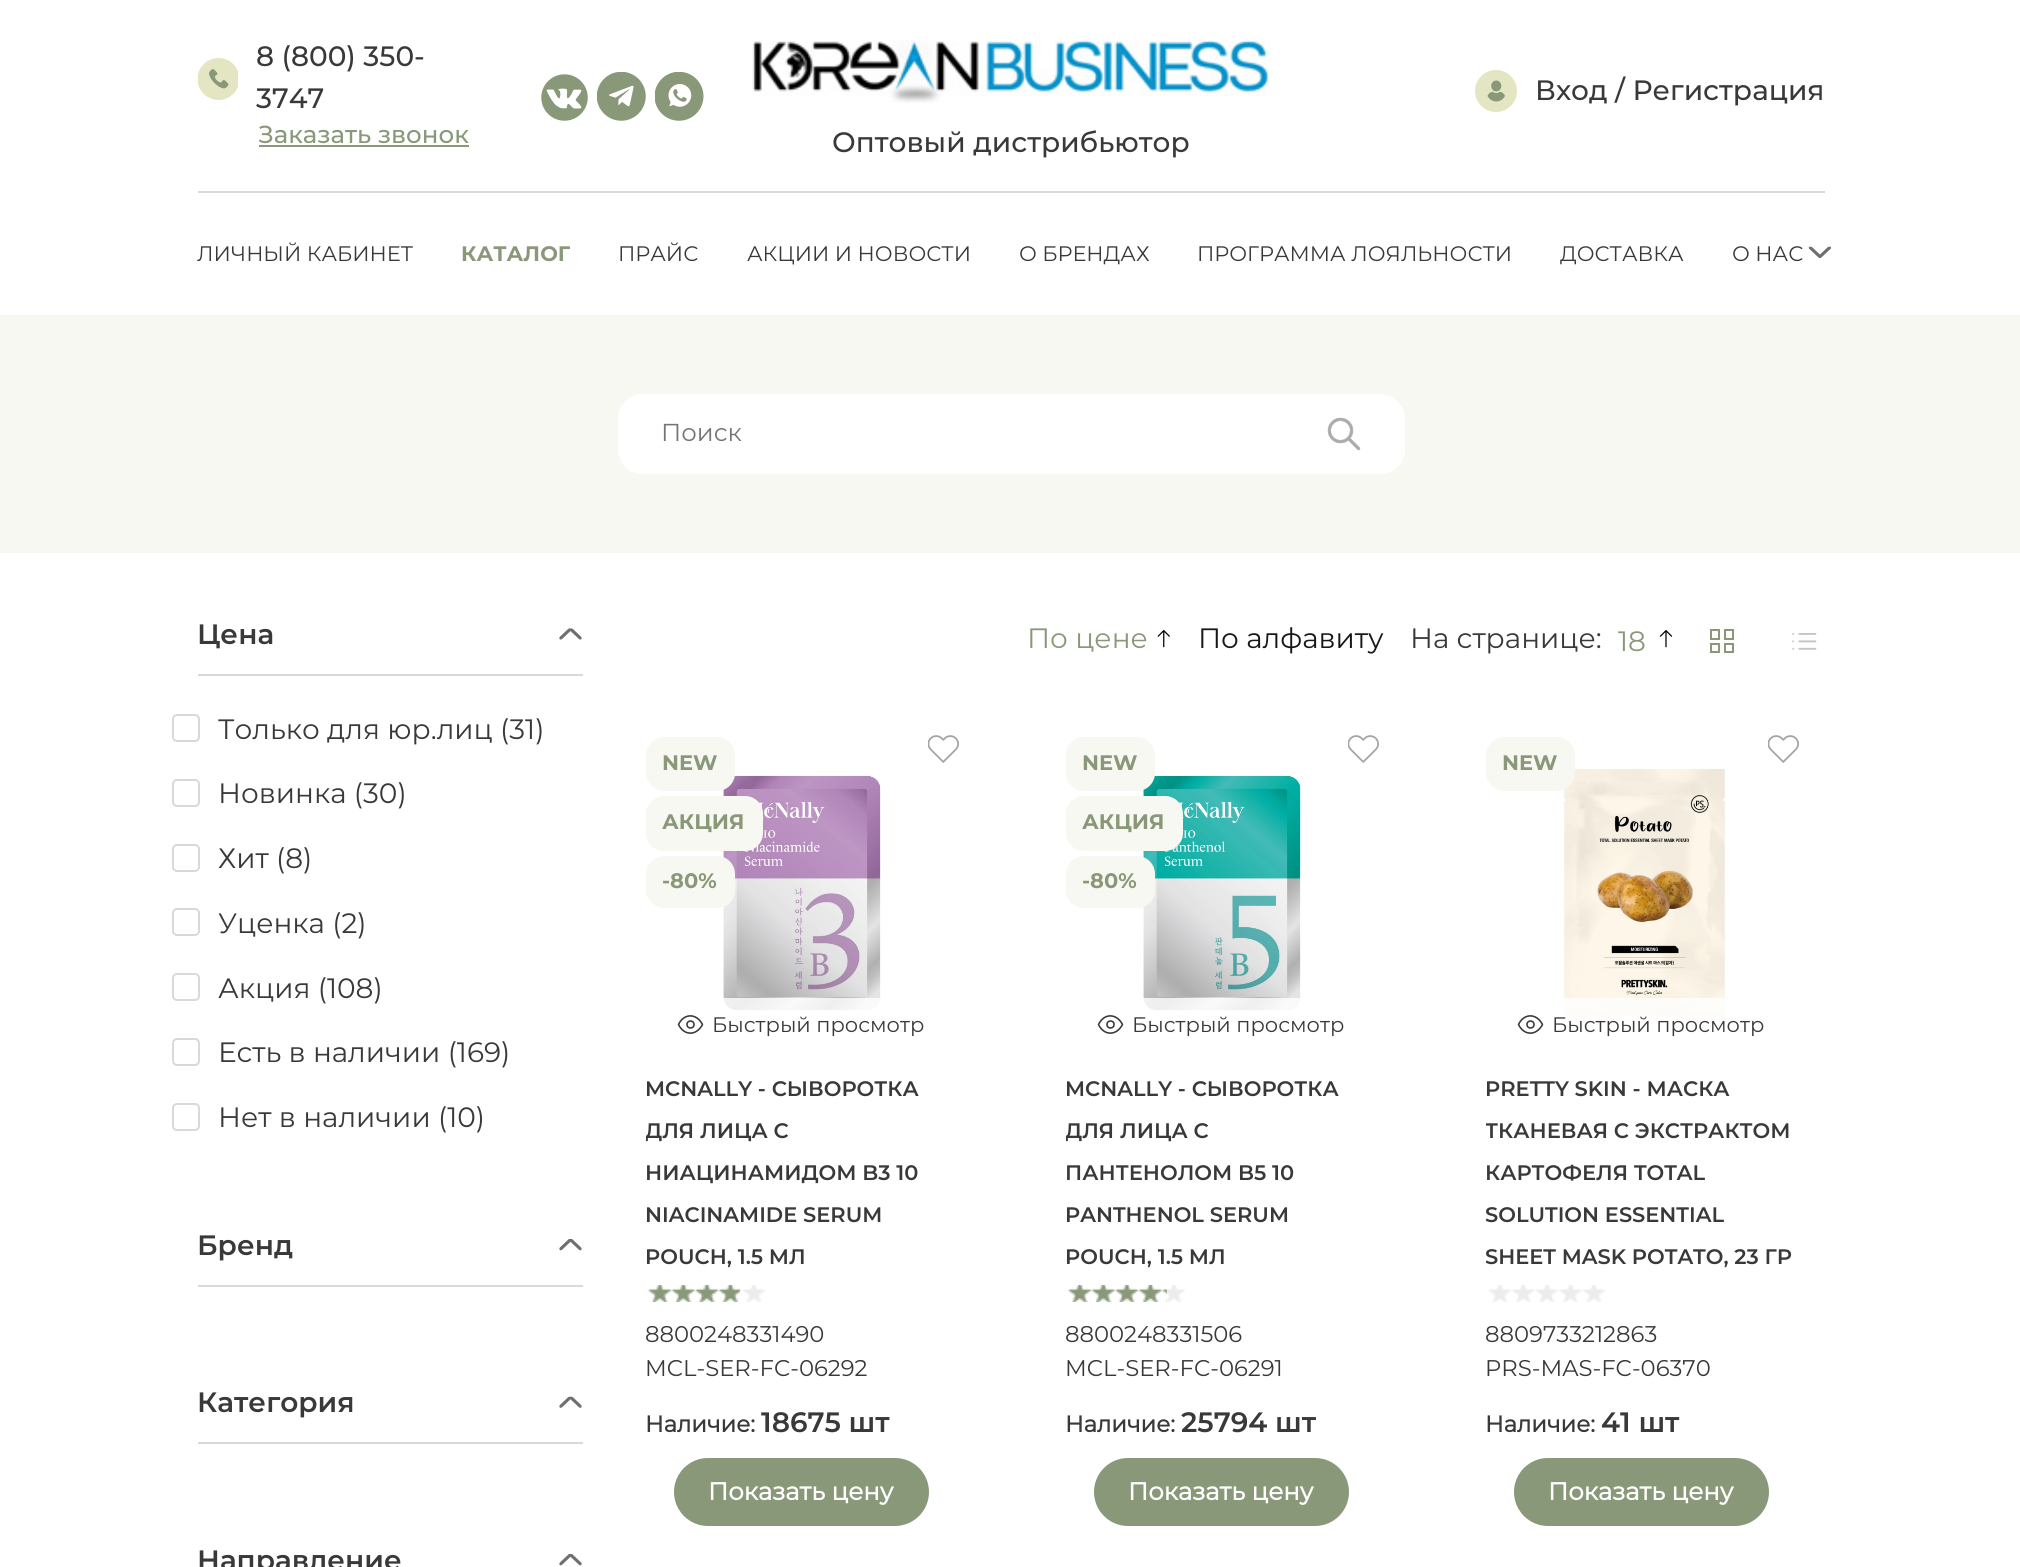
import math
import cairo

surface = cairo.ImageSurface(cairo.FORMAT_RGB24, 2020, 1567)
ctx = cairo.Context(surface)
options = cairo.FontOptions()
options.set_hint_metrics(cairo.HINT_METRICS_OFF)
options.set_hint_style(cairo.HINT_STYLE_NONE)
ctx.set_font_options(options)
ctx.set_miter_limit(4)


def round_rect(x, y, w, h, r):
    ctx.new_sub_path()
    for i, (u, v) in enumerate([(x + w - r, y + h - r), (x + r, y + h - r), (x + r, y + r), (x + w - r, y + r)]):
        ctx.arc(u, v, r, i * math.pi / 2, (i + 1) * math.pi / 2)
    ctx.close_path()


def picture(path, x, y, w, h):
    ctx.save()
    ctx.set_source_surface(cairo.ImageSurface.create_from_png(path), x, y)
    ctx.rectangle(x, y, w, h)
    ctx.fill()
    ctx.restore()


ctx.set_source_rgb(1, 1, 1)
ctx.paint()
picture("img1.png", 198, 58, 40, 42)
ctx.select_font_face("Montserrat Medium")
ctx.set_font_size(28)
ctx.set_source_rgb(0.224, 0.224, 0.224)
ctx.move_to(256, 66)
ctx.show_text("8 (800) 350-")
ctx.move_to(256, 108)
ctx.show_text("3747")
ctx.set_font_size(24.5)
ctx.set_source_rgb(0.537, 0.596, 0.471)
ctx.move_to(258, 143)
ctx.show_text("Заказать звонок")
ctx.rectangle(259, 145, 210, 2)
ctx.fill()
picture("img2.png", 541, 74, 47, 47)
picture("img3.png", 597, 72, 49, 49)
picture("img4.png", 655, 72, 49, 49)
picture("img5.png", 1475, 70, 42, 42)
ctx.set_font_size(28)
ctx.set_source_rgb(0.224, 0.224, 0.224)
ctx.move_to(1535, 100)
ctx.show_text("Вход / Регистрация")
picture("img6.png", 752, 40, 520, 63)
ctx.move_to(832, 152)
ctx.show_text("Оптовый дистрибьютор")
ctx.set_source_rgb(0.851, 0.851, 0.851)
ctx.rectangle(198, 191, 1627, 2)
ctx.fill()
ctx.select_font_face("Montserrat")
ctx.set_font_size(21)
ctx.set_source_rgb(0.224, 0.224, 0.224)
ctx.move_to(197, 261)
ctx.show_text("ЛИЧНЫЙ КАБИНЕТ")
ctx.select_font_face("Montserrat", cairo.FONT_SLANT_NORMAL, cairo.FONT_WEIGHT_BOLD)
ctx.set_source_rgb(0.537, 0.596, 0.471)
ctx.move_to(461, 261)
ctx.show_text("КАТАЛОГ")
ctx.select_font_face("Montserrat")
ctx.set_source_rgb(0.224, 0.224, 0.224)
ctx.move_to(618, 261)
ctx.show_text("ПРАЙС")
ctx.move_to(747, 261)
ctx.show_text("АКЦИИ И НОВОСТИ")
ctx.move_to(1019, 261)
ctx.show_text("О БРЕНДАХ")
ctx.move_to(1197, 261)
ctx.show_text("ПРОГРАММА ЛОЯЛЬНОСТИ")
ctx.move_to(1560, 261)
ctx.show_text("ДОСТАВКА")
ctx.move_to(1732, 261)
ctx.show_text("О НАС")
picture("img7.png", 1808, 246, 23, 13)
ctx.set_source_rgb(0.969, 0.969, 0.949)
ctx.rectangle(0, 315, 2020, 238)
ctx.fill()
ctx.set_source_rgb(1, 1, 1)
ctx.new_path()
ctx.move_to(643, 394)
ctx.line_to(1283, 394)
ctx.line_to(1283, 474)
ctx.line_to(643, 474)
ctx.curve_to(629, 474, 618, 463, 618, 449)
ctx.line_to(618, 419)
ctx.curve_to(618, 405, 629, 394, 643, 394)
ctx.close_path()
ctx.fill()
ctx.set_font_size(24.5)
ctx.set_source_rgb(0.459, 0.459, 0.459)
ctx.move_to(661, 441)
ctx.show_text("Поиск")
ctx.set_source_rgb(1, 1, 1)
ctx.new_path()
ctx.move_to(1283, 394)
ctx.line_to(1380, 394)
ctx.curve_to(1394, 394, 1405, 405, 1405, 419)
ctx.line_to(1405, 449)
ctx.curve_to(1405, 463, 1394, 474, 1380, 474)
ctx.line_to(1283, 474)
ctx.close_path()
ctx.fill()
picture("img8.png", 1327, 417, 34, 34)
ctx.set_source_rgb(0.851, 0.851, 0.851)
ctx.rectangle(198, 674, 385, 2)
ctx.fill()
ctx.select_font_face("Montserrat SemiBold")
ctx.set_font_size(28)
ctx.set_source_rgb(0.224, 0.224, 0.224)
ctx.move_to(197, 644)
ctx.show_text("Цена")
picture("img9.png", 559, 628, 23, 12)
round_rect(173, 715, 26, 26, 4)
ctx.set_source_rgb(0.851, 0.851, 0.851)
ctx.stroke()
ctx.select_font_face("Montserrat")
ctx.set_source_rgb(0.224, 0.224, 0.224)
ctx.move_to(218, 739)
ctx.show_text("Только для юр.лиц (31)")
round_rect(173, 780, 26, 26, 4)
ctx.set_source_rgb(0.851, 0.851, 0.851)
ctx.stroke()
ctx.set_source_rgb(0.224, 0.224, 0.224)
ctx.move_to(218, 803)
ctx.show_text("Новинка (30)")
round_rect(173, 845, 26, 26, 4)
ctx.set_source_rgb(0.851, 0.851, 0.851)
ctx.stroke()
ctx.set_source_rgb(0.224, 0.224, 0.224)
ctx.move_to(218, 868)
ctx.show_text("Хит (8)")
round_rect(173, 909, 26, 26, 4)
ctx.set_source_rgb(0.851, 0.851, 0.851)
ctx.stroke()
ctx.set_source_rgb(0.224, 0.224, 0.224)
ctx.move_to(218, 933)
ctx.show_text("Уценка (2)")
round_rect(173, 974, 26, 26, 4)
ctx.set_source_rgb(0.851, 0.851, 0.851)
ctx.stroke()
ctx.set_source_rgb(0.224, 0.224, 0.224)
ctx.move_to(218, 998)
ctx.show_text("Акция (108)")
round_rect(173, 1039, 26, 26, 4)
ctx.set_source_rgb(0.851, 0.851, 0.851)
ctx.stroke()
ctx.set_source_rgb(0.224, 0.224, 0.224)
ctx.move_to(218, 1062)
ctx.show_text("Есть в наличии (169)")
round_rect(173, 1104, 26, 26, 4)
ctx.set_source_rgb(0.851, 0.851, 0.851)
ctx.stroke()
ctx.set_source_rgb(0.224, 0.224, 0.224)
ctx.move_to(218, 1127)
ctx.show_text("Нет в наличии (10)")
ctx.set_source_rgb(0.851, 0.851, 0.851)
ctx.rectangle(198, 1285, 385, 2)
ctx.fill()
ctx.select_font_face("Montserrat SemiBold")
ctx.set_source_rgb(0.224, 0.224, 0.224)
ctx.move_to(197, 1255)
ctx.show_text("Бренд")
picture("img10.png", 559, 1239, 23, 12)
ctx.set_source_rgb(0.851, 0.851, 0.851)
ctx.rectangle(198, 1442, 385, 2)
ctx.fill()
ctx.set_source_rgb(0.224, 0.224, 0.224)
ctx.move_to(197, 1412)
ctx.show_text("Категория")
picture("img11.png", 559, 1396, 23, 12)
ctx.move_to(197, 1570)
ctx.show_text("Направление")
picture("img10.png", 559, 1554, 23, 12)
ctx.select_font_face("Montserrat")
ctx.set_source_rgb(0.537, 0.596, 0.471)
ctx.move_to(1027, 648)
ctx.show_text("По цене")
picture("img12.png", 1157, 630, 13, 18)
ctx.set_source_rgb(0.09, 0.09, 0.09)
ctx.move_to(1198, 648)
ctx.show_text("По алфавиту")
ctx.set_source_rgb(0.224, 0.224, 0.224)
ctx.move_to(1410, 648)
ctx.show_text("На странице:")
ctx.set_source_rgb(0.537, 0.596, 0.471)
ctx.move_to(1618, 651)
ctx.show_text("18")
picture("img13.png", 1659, 630, 14, 18)
ctx.rectangle(1711, 630, 8, 9)
ctx.stroke()
ctx.rectangle(1725, 630, 8, 9)
ctx.stroke()
ctx.rectangle(1711, 644, 8, 8)
ctx.stroke()
ctx.rectangle(1725, 644, 8, 8)
ctx.stroke()
picture("img14.png", 1792, 633, 25, 17)
picture("img15.png", 928, 735, 31, 28)
picture("img16.png", 723, 775, 158, 236)
ctx.set_source_rgb(0.969, 0.969, 0.949)
round_rect(646, 737, 89, 54, 18)
ctx.fill()
ctx.select_font_face("Montserrat", cairo.FONT_SLANT_NORMAL, cairo.FONT_WEIGHT_BOLD)
ctx.set_font_size(21)
ctx.set_source_rgb(0.537, 0.596, 0.471)
ctx.move_to(662, 770)
ctx.show_text("NEW")
ctx.set_source_rgb(0.969, 0.969, 0.949)
round_rect(646, 796, 117, 55, 18)
ctx.fill()
ctx.set_source_rgb(0.537, 0.596, 0.471)
ctx.move_to(662, 829)
ctx.show_text("АКЦИЯ")
ctx.set_source_rgb(0.969, 0.969, 0.949)
round_rect(646, 856, 89, 52, 18)
ctx.fill()
ctx.set_source_rgb(0.537, 0.596, 0.471)
ctx.move_to(662, 888)
ctx.show_text("-80%")
ctx.set_source_rgba(1, 1, 1, 0.8)
ctx.rectangle(723, 998, 157, 13)
ctx.fill()
ctx.new_path()
ctx.move_to(678.5, 1024.5)
ctx.curve_to(684, 1013, 696.5, 1013, 702.5, 1024.5)
ctx.curve_to(696.5, 1036, 684, 1036, 678.5, 1024.5)
ctx.close_path()
ctx.set_source_rgb(0.224, 0.224, 0.224)
ctx.set_line_width(1.6)
ctx.set_line_cap(cairo.LINE_CAP_ROUND)
ctx.set_line_join(cairo.LINE_JOIN_ROUND)
ctx.stroke()
ctx.arc(690.5, 1024.5, 3.5, 0, 2 * math.pi)
ctx.set_line_cap(cairo.LINE_CAP_BUTT)
ctx.set_line_join(cairo.LINE_JOIN_MITER)
ctx.stroke()
ctx.select_font_face("Montserrat")
ctx.move_to(712, 1032)
ctx.show_text("Быстрый просмотр")
ctx.select_font_face("Montserrat SemiBold")
ctx.move_to(645, 1096)
ctx.show_text("MCNALLY - СЫВОРОТКА")
ctx.save()
ctx.rectangle(646, 1066, 311, 210)
ctx.clip()
ctx.move_to(645, 1138)
ctx.show_text("ДЛЯ ЛИЦА С")
ctx.restore()
ctx.move_to(645, 1180)
ctx.show_text("НИАЦИНАМИДОМ B3 10")
ctx.move_to(645, 1222)
ctx.show_text("NIACINAMIDE SERUM")
ctx.move_to(645, 1264)
ctx.show_text("POUCH, 1.5 МЛ")
ctx.set_source_rgb(0.922, 0.922, 0.922)
ctx.rectangle(740, 1285, 27, 17)
ctx.fill()
ctx.set_source_rgb(0.537, 0.596, 0.471)
ctx.rectangle(647, 1285, 93, 17)
ctx.fill()
picture("img17.png", 646, 1285, 122, 17)
ctx.select_font_face("Montserrat")
ctx.set_font_size(22.75)
ctx.set_source_rgb(0.224, 0.224, 0.224)
ctx.move_to(645, 1342)
ctx.show_text("8800248331490")
ctx.move_to(645, 1376)
ctx.show_text("MCL-SER-FC-06292")
ctx.select_font_face("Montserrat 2", cairo.FONT_SLANT_NORMAL, cairo.FONT_WEIGHT_BOLD)
ctx.move_to(645, 1432)
ctx.show_text("Наличие:")
ctx.select_font_face("Montserrat SemiBold")
ctx.set_font_size(28)
ctx.move_to(761, 1432)
ctx.show_text("18675 шт")
ctx.set_source_rgb(0.537, 0.596, 0.471)
round_rect(674, 1458, 255, 68, 34)
ctx.fill()
ctx.select_font_face("Montserrat 2", cairo.FONT_SLANT_NORMAL, cairo.FONT_WEIGHT_BOLD)
ctx.set_font_size(24.5)
ctx.set_source_rgb(1, 1, 1)
ctx.move_to(708, 1500)
ctx.show_text("Показать цену")
picture("img15.png", 1348, 735, 31, 28)
picture("img18.png", 1143, 775, 158, 236)
ctx.set_source_rgb(0.969, 0.969, 0.949)
round_rect(1066, 737, 89, 54, 18)
ctx.fill()
ctx.select_font_face("Montserrat", cairo.FONT_SLANT_NORMAL, cairo.FONT_WEIGHT_BOLD)
ctx.set_font_size(21)
ctx.set_source_rgb(0.537, 0.596, 0.471)
ctx.move_to(1082, 770)
ctx.show_text("NEW")
ctx.set_source_rgb(0.969, 0.969, 0.949)
round_rect(1066, 796, 117, 55, 18)
ctx.fill()
ctx.set_source_rgb(0.537, 0.596, 0.471)
ctx.move_to(1082, 829)
ctx.show_text("АКЦИЯ")
ctx.set_source_rgb(0.969, 0.969, 0.949)
round_rect(1066, 856, 89, 52, 18)
ctx.fill()
ctx.set_source_rgb(0.537, 0.596, 0.471)
ctx.move_to(1082, 888)
ctx.show_text("-80%")
ctx.set_source_rgba(1, 1, 1, 0.8)
ctx.rectangle(1143, 998, 157, 13)
ctx.fill()
ctx.new_path()
ctx.move_to(1098.5, 1024.5)
ctx.curve_to(1104, 1013, 1116.5, 1013, 1122.5, 1024.5)
ctx.curve_to(1116.5, 1036, 1104, 1036, 1098.5, 1024.5)
ctx.close_path()
ctx.set_source_rgb(0.224, 0.224, 0.224)
ctx.set_line_cap(cairo.LINE_CAP_ROUND)
ctx.set_line_join(cairo.LINE_JOIN_ROUND)
ctx.stroke()
ctx.arc(1110.5, 1024.5, 3.5, 0, 2 * math.pi)
ctx.set_line_cap(cairo.LINE_CAP_BUTT)
ctx.set_line_join(cairo.LINE_JOIN_MITER)
ctx.stroke()
ctx.select_font_face("Montserrat")
ctx.move_to(1132, 1032)
ctx.show_text("Быстрый просмотр")
ctx.select_font_face("Montserrat SemiBold")
ctx.move_to(1065, 1096)
ctx.show_text("MCNALLY - СЫВОРОТКА")
ctx.save()
ctx.rectangle(1066, 1066, 311, 210)
ctx.clip()
ctx.move_to(1065, 1138)
ctx.show_text("ДЛЯ ЛИЦА С")
ctx.restore()
ctx.move_to(1065, 1180)
ctx.show_text("ПАНТЕНОЛОМ B5 10")
ctx.move_to(1065, 1222)
ctx.show_text("PANTHENOL SERUM")
ctx.move_to(1065, 1264)
ctx.show_text("POUCH, 1.5 МЛ")
ctx.set_source_rgb(0.922, 0.922, 0.922)
ctx.rectangle(1167, 1285, 20, 17)
ctx.fill()
ctx.set_source_rgb(0.537, 0.596, 0.471)
ctx.rectangle(1067, 1285, 100, 17)
ctx.fill()
picture("img19.png", 1066, 1285, 122, 17)
ctx.select_font_face("Montserrat")
ctx.set_font_size(22.75)
ctx.set_source_rgb(0.224, 0.224, 0.224)
ctx.move_to(1065, 1342)
ctx.show_text("8800248331506")
ctx.move_to(1065, 1376)
ctx.show_text("MCL-SER-FC-06291")
ctx.select_font_face("Montserrat 2", cairo.FONT_SLANT_NORMAL, cairo.FONT_WEIGHT_BOLD)
ctx.move_to(1065, 1432)
ctx.show_text("Наличие:")
ctx.select_font_face("Montserrat SemiBold")
ctx.set_font_size(28)
ctx.move_to(1181, 1432)
ctx.show_text("25794 шт")
ctx.set_source_rgb(0.537, 0.596, 0.471)
round_rect(1094, 1458, 255, 68, 34)
ctx.fill()
ctx.select_font_face("Montserrat 2", cairo.FONT_SLANT_NORMAL, cairo.FONT_WEIGHT_BOLD)
ctx.set_font_size(24.5)
ctx.set_source_rgb(1, 1, 1)
ctx.move_to(1128, 1500)
ctx.show_text("Показать цену")
picture("img20.png", 1563, 768, 162, 249)
ctx.set_source_rgb(0.969, 0.969, 0.949)
round_rect(1486, 737, 89, 54, 18)
ctx.fill()
ctx.select_font_face("Montserrat", cairo.FONT_SLANT_NORMAL, cairo.FONT_WEIGHT_BOLD)
ctx.set_font_size(21)
ctx.set_source_rgb(0.537, 0.596, 0.471)
ctx.move_to(1502, 770)
ctx.show_text("NEW")
picture("img15.png", 1768, 735, 31, 28)
ctx.set_source_rgba(1, 1, 1, 0.8)
ctx.rectangle(1563, 998, 162, 19)
ctx.fill()
ctx.new_path()
ctx.move_to(1518.5, 1024.5)
ctx.curve_to(1524, 1013, 1536.5, 1013, 1542.5, 1024.5)
ctx.curve_to(1536.5, 1036, 1524, 1036, 1518.5, 1024.5)
ctx.close_path()
ctx.set_source_rgb(0.224, 0.224, 0.224)
ctx.set_line_cap(cairo.LINE_CAP_ROUND)
ctx.set_line_join(cairo.LINE_JOIN_ROUND)
ctx.stroke()
ctx.arc(1530.5, 1024.5, 3.5, 0, 2 * math.pi)
ctx.set_line_cap(cairo.LINE_CAP_BUTT)
ctx.set_line_join(cairo.LINE_JOIN_MITER)
ctx.stroke()
ctx.select_font_face("Montserrat")
ctx.move_to(1552, 1032)
ctx.show_text("Быстрый просмотр")
ctx.select_font_face("Montserrat SemiBold")
ctx.move_to(1485, 1096)
ctx.show_text("PRETTY SKIN - МАСКА")
ctx.save()
ctx.rectangle(1486, 1066, 311, 210)
ctx.clip()
ctx.move_to(1485, 1138)
ctx.show_text("ТКАНЕВАЯ С ЭКСТРАКТОМ")
ctx.restore()
ctx.move_to(1485, 1180)
ctx.show_text("КАРТОФЕЛЯ TOTAL")
ctx.move_to(1485, 1222)
ctx.show_text("SOLUTION ESSENTIAL")
ctx.move_to(1485, 1264)
ctx.show_text("SHEET MASK POTATO, 23 ГР")
ctx.set_source_rgb(0.922, 0.922, 0.922)
ctx.rectangle(1487, 1285, 120, 17)
ctx.fill()
picture("img21.png", 1486, 1285, 122, 17)
ctx.select_font_face("Montserrat")
ctx.set_font_size(22.75)
ctx.set_source_rgb(0.224, 0.224, 0.224)
ctx.move_to(1485, 1342)
ctx.show_text("8809733212863")
ctx.move_to(1485, 1376)
ctx.show_text("PRS-MAS-FC-06370")
ctx.select_font_face("Montserrat 2", cairo.FONT_SLANT_NORMAL, cairo.FONT_WEIGHT_BOLD)
ctx.move_to(1485, 1432)
ctx.show_text("Наличие:")
ctx.select_font_face("Montserrat SemiBold")
ctx.set_font_size(28)
ctx.move_to(1601, 1432)
ctx.show_text("41 шт")
ctx.set_source_rgb(0.537, 0.596, 0.471)
round_rect(1514, 1458, 255, 68, 34)
ctx.fill()
ctx.select_font_face("Montserrat 2", cairo.FONT_SLANT_NORMAL, cairo.FONT_WEIGHT_BOLD)
ctx.set_font_size(24.5)
ctx.set_source_rgb(1, 1, 1)
ctx.move_to(1548, 1500)
ctx.show_text("Показать цену")
surface.write_to_png("page.png")
